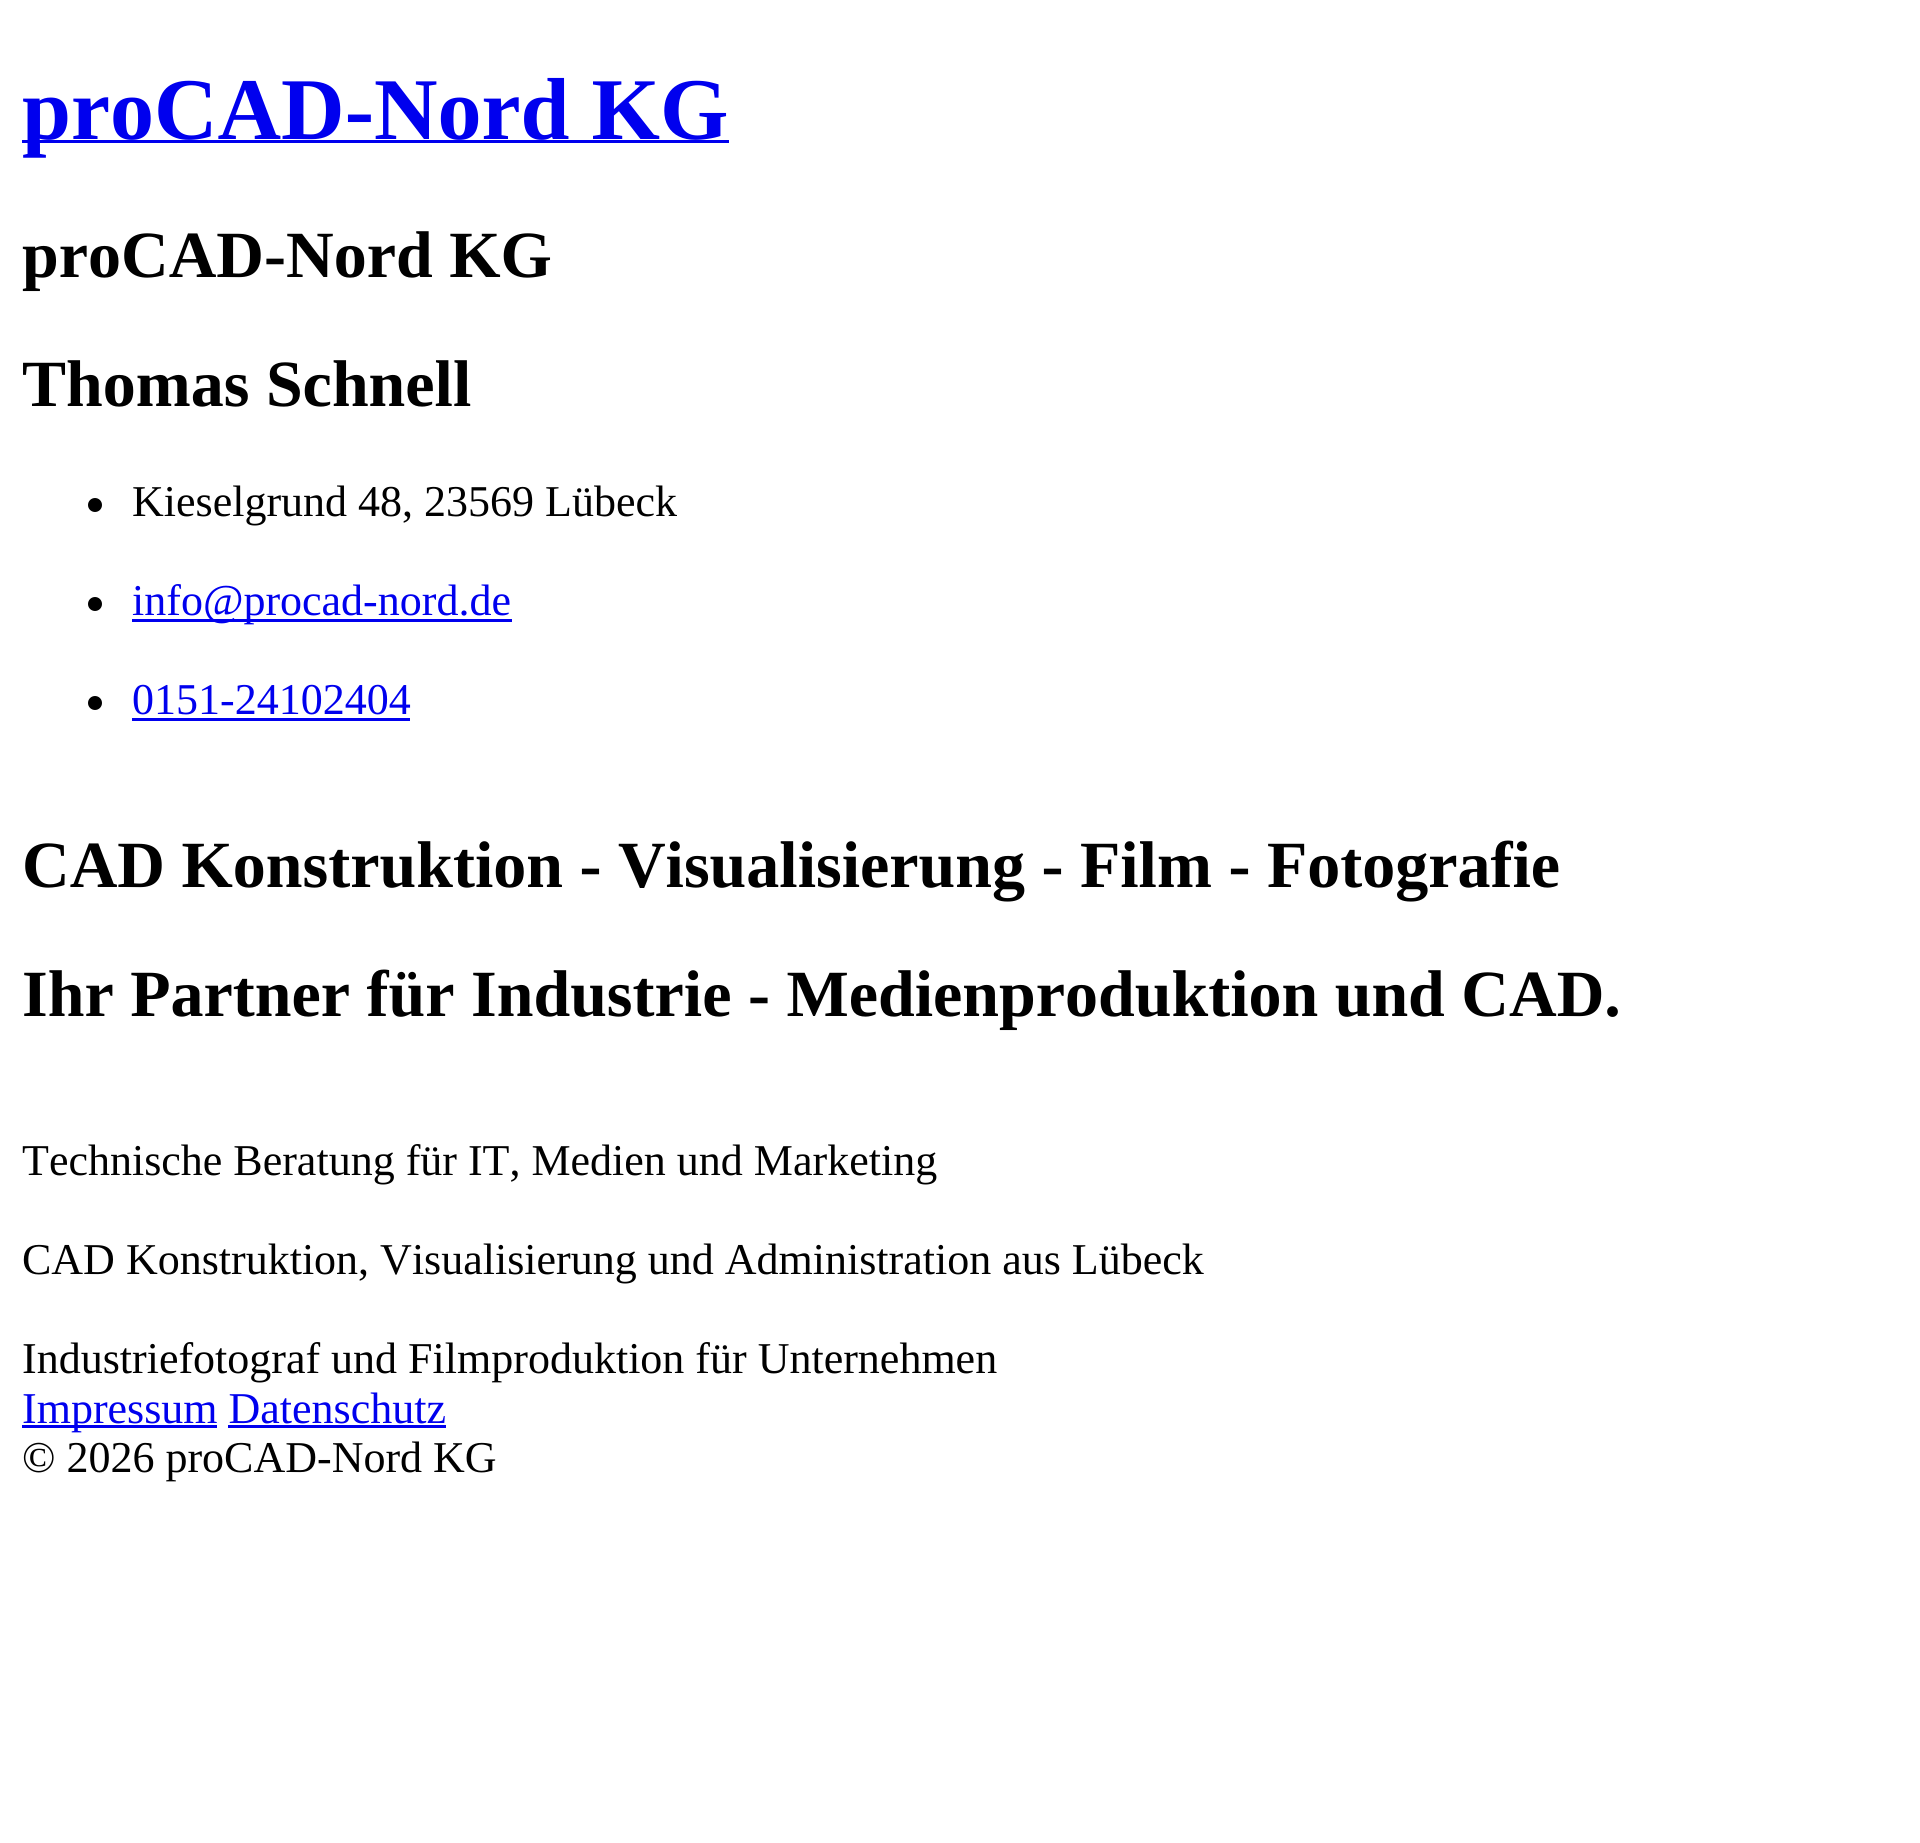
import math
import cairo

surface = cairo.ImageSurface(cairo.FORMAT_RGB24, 1920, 1843)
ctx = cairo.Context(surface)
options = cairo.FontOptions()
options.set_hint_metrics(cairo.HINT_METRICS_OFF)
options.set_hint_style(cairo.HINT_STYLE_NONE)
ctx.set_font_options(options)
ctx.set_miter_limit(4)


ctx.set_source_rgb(1, 1, 1)
ctx.paint()
ctx.set_source_rgb(0, 0, 0.933)
ctx.rectangle(22, 140, 707, 3)
ctx.fill()
ctx.select_font_face("Liberation Serif", cairo.FONT_SLANT_NORMAL, cairo.FONT_WEIGHT_BOLD)
ctx.set_font_size(88)
ctx.move_to(22, 139)
ctx.show_text("proCAD-Nord KG")
ctx.set_font_size(66)
ctx.set_source_rgb(0, 0, 0)
ctx.move_to(22, 277)
ctx.show_text("proCAD-Nord KG")
ctx.move_to(22, 406)
ctx.show_text("Thomas Schnell")
ctx.new_path()
ctx.arc(95, 505, 7, 0, 2 * math.pi)
ctx.fill()
ctx.select_font_face("Liberation Serif")
ctx.set_font_size(44)
ctx.move_to(132, 516)
ctx.show_text("Kieselgrund 48, 23569 Lübeck")
ctx.new_path()
ctx.arc(95, 604, 7, 0, 2 * math.pi)
ctx.fill()
ctx.set_source_rgb(0, 0, 0.933)
ctx.rectangle(132, 619, 380, 3)
ctx.fill()
ctx.move_to(132, 615)
ctx.show_text("info@procad-nord.de")
ctx.set_source_rgb(0, 0, 0)
ctx.new_path()
ctx.arc(95, 703, 7, 0, 2 * math.pi)
ctx.fill()
ctx.set_source_rgb(0, 0, 0.933)
ctx.move_to(132, 714)
ctx.show_text("0151-24102404")
ctx.rectangle(132, 718, 278, 3)
ctx.fill()
ctx.select_font_face("Liberation Serif", cairo.FONT_SLANT_NORMAL, cairo.FONT_WEIGHT_BOLD)
ctx.set_font_size(66)
ctx.set_source_rgb(0, 0, 0)
ctx.move_to(22, 887)
ctx.show_text("CAD Konstruktion - Visualisierung - Film - Fotografie")
ctx.move_to(22, 1016)
ctx.show_text("Ihr Partner für Industrie - Medienproduktion und CAD.")
ctx.select_font_face("Liberation Serif")
ctx.set_font_size(44)
ctx.move_to(22, 1175)
ctx.show_text("Technische Beratung für IT, Medien und Marketing")
ctx.move_to(22, 1274)
ctx.show_text("CAD Konstruktion, Visualisierung und Administration aus Lübeck")
ctx.move_to(22, 1373)
ctx.show_text("Industriefotograf und Filmproduktion für Unternehmen")
ctx.set_source_rgb(0, 0, 0.933)
ctx.rectangle(22, 1425, 195, 3)
ctx.fill()
ctx.move_to(22, 1423)
ctx.show_text("Impressum Datenschutz")
ctx.rectangle(228, 1425, 218, 3)
ctx.fill()
ctx.set_source_rgb(0, 0, 0)
ctx.move_to(22, 1472)
ctx.show_text("© 2026 proCAD-Nord KG")
surface.write_to_png("page.png")
